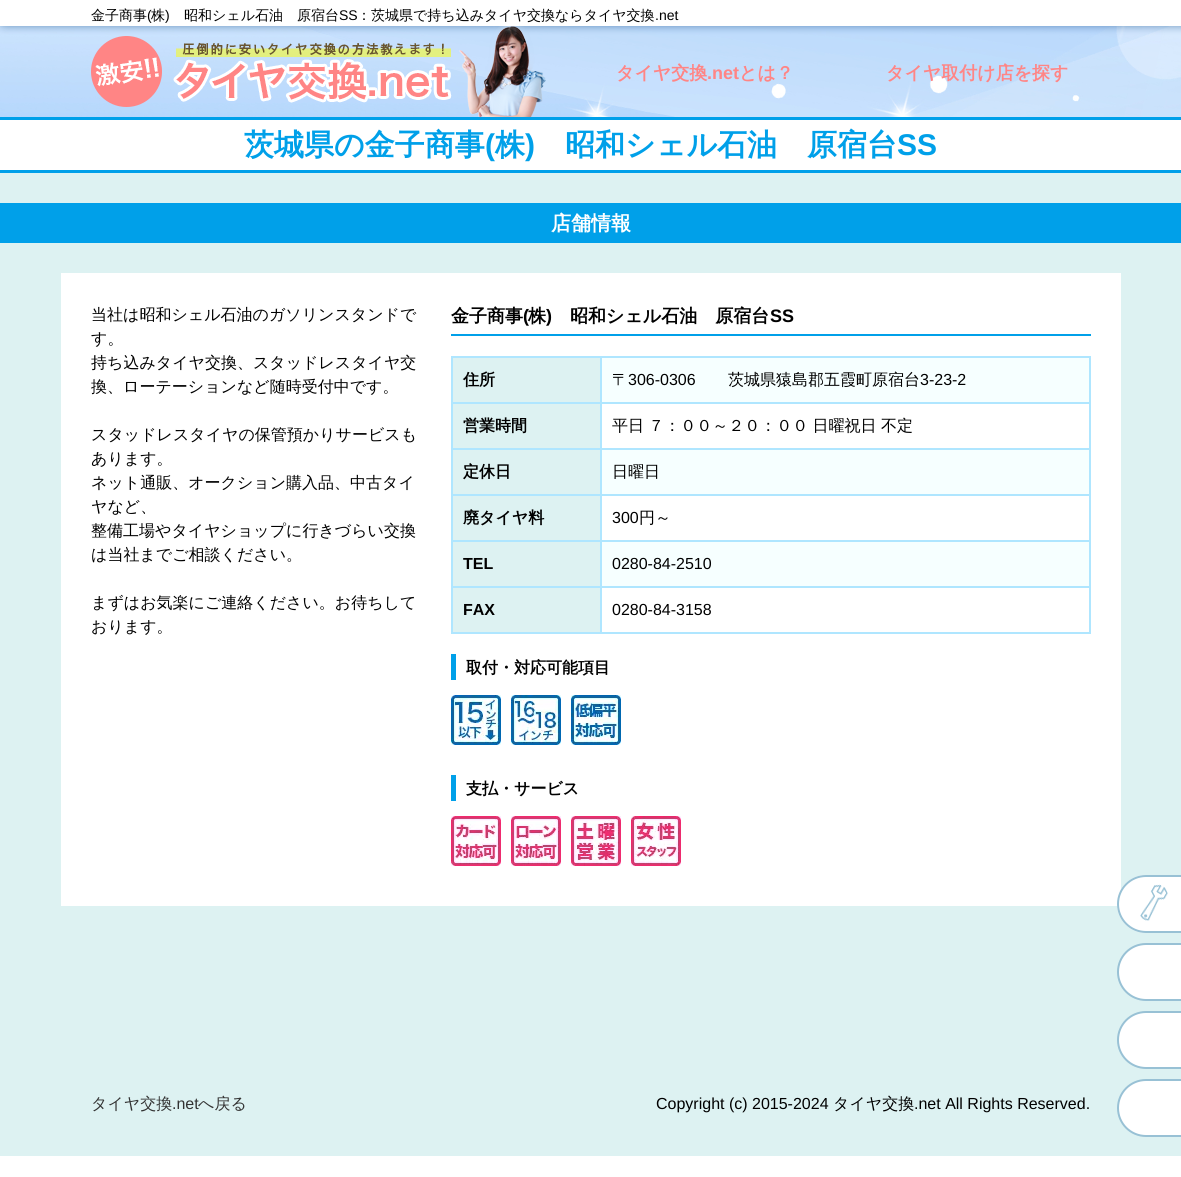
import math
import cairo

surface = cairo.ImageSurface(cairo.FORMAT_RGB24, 1181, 1177)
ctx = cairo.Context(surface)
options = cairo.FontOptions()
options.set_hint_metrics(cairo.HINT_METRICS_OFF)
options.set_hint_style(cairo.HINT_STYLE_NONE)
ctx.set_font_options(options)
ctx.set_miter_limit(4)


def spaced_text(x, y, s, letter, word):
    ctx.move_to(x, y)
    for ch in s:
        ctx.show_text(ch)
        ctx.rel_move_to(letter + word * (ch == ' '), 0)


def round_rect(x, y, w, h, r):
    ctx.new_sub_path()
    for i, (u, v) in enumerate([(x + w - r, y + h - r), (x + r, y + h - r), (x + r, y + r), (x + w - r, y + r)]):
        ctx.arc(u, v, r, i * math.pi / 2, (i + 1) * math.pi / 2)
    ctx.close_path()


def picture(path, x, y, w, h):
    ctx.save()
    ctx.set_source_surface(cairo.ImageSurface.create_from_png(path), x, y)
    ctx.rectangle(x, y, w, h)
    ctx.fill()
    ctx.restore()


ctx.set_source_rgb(1, 1, 1)
ctx.paint()
ctx.select_font_face("WenQuanYi Zen Hei Medium")
ctx.set_font_size(14)
ctx.set_source_rgb(0, 0, 0)
ctx.move_to(91, 20)
ctx.show_text("金子商事")
ctx.select_font_face("Liberation Sans")
ctx.move_to(147, 20)
ctx.show_text("(")
ctx.select_font_face("WenQuanYi Zen Hei Medium")
ctx.move_to(151, 20)
ctx.show_text("株")
ctx.select_font_face("Liberation Sans")
ctx.move_to(165, 20)
ctx.show_text(")")
ctx.select_font_face("WenQuanYi Zen Hei Medium")
ctx.move_to(184, 20)
ctx.show_text("昭和シェル石油　原宿台")
ctx.select_font_face("Liberation Sans")
ctx.move_to(339, 20)
ctx.show_text("SS")
ctx.select_font_face("WenQuanYi Zen Hei Medium")
ctx.move_to(357, 20)
ctx.show_text("：茨城県で持ち込みタイヤ交換ならタイヤ交換")
ctx.select_font_face("Liberation Sans")
ctx.move_to(655, 20)
ctx.show_text(".net")
picture("img1.png", 0, 26, 1181, 91)
picture("img2.png", 91, 26, 455, 91)
ctx.select_font_face("WenQuanYi Zen Hei", cairo.FONT_SLANT_NORMAL, cairo.FONT_WEIGHT_BOLD)
ctx.set_font_size(18)
ctx.set_source_rgb(1, 0.522, 0.522)
ctx.move_to(616, 79)
ctx.show_text("タイヤ交換")
ctx.select_font_face("Liberation Sans", cairo.FONT_SLANT_NORMAL, cairo.FONT_WEIGHT_BOLD)
ctx.move_to(707, 79)
ctx.show_text(".net")
ctx.select_font_face("WenQuanYi Zen Hei", cairo.FONT_SLANT_NORMAL, cairo.FONT_WEIGHT_BOLD)
ctx.move_to(739, 79)
ctx.show_text("とは？")
ctx.move_to(886, 79)
ctx.show_text("タイヤ取付け店を探す")
ctx.set_source_rgb(0.867, 0.949, 0.949)
ctx.rectangle(0, 173, 1181, 983)
ctx.fill()
ctx.set_source_rgb(0, 0.627, 0.914)
ctx.rectangle(0, 117, 1181, 3)
ctx.fill()
ctx.rectangle(0, 170, 1181, 3)
ctx.fill()
ctx.set_font_size(30)
ctx.move_to(244, 155)
ctx.show_text("茨城県の金子商事")
ctx.select_font_face("Liberation Sans", cairo.FONT_SLANT_NORMAL, cairo.FONT_WEIGHT_BOLD)
ctx.move_to(485, 155)
ctx.show_text("(")
ctx.select_font_face("WenQuanYi Zen Hei", cairo.FONT_SLANT_NORMAL, cairo.FONT_WEIGHT_BOLD)
ctx.move_to(495, 155)
ctx.show_text("株")
ctx.select_font_face("Liberation Sans", cairo.FONT_SLANT_NORMAL, cairo.FONT_WEIGHT_BOLD)
ctx.move_to(525, 155)
ctx.show_text(")")
ctx.select_font_face("WenQuanYi Zen Hei", cairo.FONT_SLANT_NORMAL, cairo.FONT_WEIGHT_BOLD)
ctx.move_to(565, 155)
ctx.show_text("昭和シェル石油　原宿台")
ctx.select_font_face("Liberation Sans", cairo.FONT_SLANT_NORMAL, cairo.FONT_WEIGHT_BOLD)
ctx.move_to(897, 155)
ctx.show_text("SS")
ctx.rectangle(0, 203, 1181, 40)
ctx.fill()
ctx.select_font_face("WenQuanYi Zen Hei", cairo.FONT_SLANT_NORMAL, cairo.FONT_WEIGHT_BOLD)
ctx.set_font_size(20)
ctx.set_source_rgb(1, 1, 1)
ctx.move_to(551, 230)
ctx.show_text("店舗情報")
ctx.rectangle(61, 273, 1060, 633)
ctx.fill()
ctx.select_font_face("WenQuanYi Zen Hei Medium")
ctx.set_font_size(16)
ctx.set_source_rgb(0, 0, 0)
ctx.move_to(91, 320)
ctx.show_text("当社は昭和シェル石油のガソリンスタンドで")
ctx.move_to(91, 344)
ctx.show_text("す。")
ctx.move_to(91, 368)
ctx.show_text("持ち込みタイヤ交換、スタッドレスタイヤ交")
ctx.move_to(91, 392)
ctx.show_text("換、ローテーションなど随時受付中です。")
ctx.move_to(91, 440)
ctx.show_text("スタッドレスタイヤの保管預かりサービスも")
ctx.move_to(91, 464)
ctx.show_text("あります。")
ctx.move_to(91, 488)
ctx.show_text("ネット通販、オークション購入品、中古タイ")
ctx.move_to(91, 512)
ctx.show_text("ヤなど、")
ctx.move_to(91, 536)
ctx.show_text("整備工場やタイヤショップに行きづらい交換")
ctx.move_to(91, 560)
ctx.show_text("は当社までご相談ください。")
ctx.move_to(91, 608)
ctx.show_text("まずはお気楽にご連絡ください。お待ちして")
ctx.move_to(91, 632)
ctx.show_text("おります。")
ctx.set_source_rgb(0, 0.627, 0.914)
ctx.rectangle(451, 334, 640, 2)
ctx.fill()
ctx.select_font_face("WenQuanYi Zen Hei", cairo.FONT_SLANT_NORMAL, cairo.FONT_WEIGHT_BOLD)
ctx.set_font_size(18)
ctx.set_source_rgb(0, 0, 0)
ctx.move_to(451, 322)
ctx.show_text("金子商事")
ctx.select_font_face("Liberation Sans", cairo.FONT_SLANT_NORMAL, cairo.FONT_WEIGHT_BOLD)
ctx.move_to(523, 322)
ctx.show_text("(")
ctx.select_font_face("WenQuanYi Zen Hei", cairo.FONT_SLANT_NORMAL, cairo.FONT_WEIGHT_BOLD)
ctx.move_to(528, 322)
ctx.show_text("株")
ctx.select_font_face("Liberation Sans", cairo.FONT_SLANT_NORMAL, cairo.FONT_WEIGHT_BOLD)
ctx.move_to(546, 322)
ctx.show_text(")")
ctx.select_font_face("WenQuanYi Zen Hei", cairo.FONT_SLANT_NORMAL, cairo.FONT_WEIGHT_BOLD)
ctx.move_to(570, 322)
ctx.show_text("昭和シェル石油　原宿台")
ctx.select_font_face("Liberation Sans", cairo.FONT_SLANT_NORMAL, cairo.FONT_WEIGHT_BOLD)
ctx.move_to(770, 322)
ctx.show_text("SS")
ctx.set_source_rgb(0.686, 0.902, 1)
ctx.rectangle(451, 356, 640, 2)
ctx.fill()
ctx.rectangle(1089, 356, 2, 278)
ctx.fill()
ctx.rectangle(451, 632, 640, 2)
ctx.fill()
ctx.rectangle(451, 356, 2, 278)
ctx.fill()
ctx.set_source_rgb(0.867, 0.949, 0.949)
ctx.rectangle(453, 358, 147, 44)
ctx.fill()
ctx.select_font_face("WenQuanYi Zen Hei", cairo.FONT_SLANT_NORMAL, cairo.FONT_WEIGHT_BOLD)
ctx.set_font_size(16)
ctx.set_source_rgb(0, 0, 0)
ctx.move_to(463, 385)
ctx.show_text("住所")
ctx.set_source_rgb(0.961, 1, 1)
ctx.rectangle(602, 358, 487, 44)
ctx.fill()
ctx.set_source_rgb(0.686, 0.902, 1)
ctx.rectangle(600, 402, 491, 2)
ctx.fill()
ctx.rectangle(600, 448, 491, 2)
ctx.fill()
ctx.rectangle(600, 494, 491, 2)
ctx.fill()
ctx.rectangle(600, 540, 491, 2)
ctx.fill()
ctx.rectangle(600, 586, 491, 2)
ctx.fill()
ctx.rectangle(600, 586, 2, 48)
ctx.fill()
ctx.rectangle(451, 586, 151, 2)
ctx.fill()
ctx.rectangle(600, 540, 2, 48)
ctx.fill()
ctx.rectangle(451, 540, 151, 2)
ctx.fill()
ctx.rectangle(600, 494, 2, 48)
ctx.fill()
ctx.rectangle(451, 494, 151, 2)
ctx.fill()
ctx.rectangle(600, 448, 2, 48)
ctx.fill()
ctx.rectangle(451, 448, 151, 2)
ctx.fill()
ctx.rectangle(600, 402, 2, 48)
ctx.fill()
ctx.rectangle(451, 402, 151, 2)
ctx.fill()
ctx.rectangle(600, 356, 2, 48)
ctx.fill()
ctx.select_font_face("WenQuanYi Zen Hei Medium")
ctx.set_source_rgb(0, 0, 0)
ctx.move_to(612, 385)
ctx.show_text("〒")
ctx.select_font_face("Liberation Sans")
ctx.move_to(628, 385)
ctx.show_text("306-0306")
ctx.select_font_face("WenQuanYi Zen Hei Medium")
ctx.move_to(728, 385)
ctx.show_text("茨城県猿島郡五霞町原宿台")
ctx.select_font_face("Liberation Sans")
ctx.move_to(920, 385)
ctx.show_text("3-23-2")
ctx.set_source_rgb(0.867, 0.949, 0.949)
ctx.rectangle(453, 404, 147, 44)
ctx.fill()
ctx.select_font_face("WenQuanYi Zen Hei", cairo.FONT_SLANT_NORMAL, cairo.FONT_WEIGHT_BOLD)
ctx.set_source_rgb(0, 0, 0)
ctx.move_to(463, 431)
ctx.show_text("営業時間")
ctx.select_font_face("WenQuanYi Zen Hei Medium")
spaced_text(612, 431, "平日 ７：００～２０：００ 日曜祝日 不定", 0, -0.5)
ctx.set_source_rgb(0.867, 0.949, 0.949)
ctx.rectangle(453, 450, 147, 44)
ctx.fill()
ctx.select_font_face("WenQuanYi Zen Hei", cairo.FONT_SLANT_NORMAL, cairo.FONT_WEIGHT_BOLD)
ctx.set_source_rgb(0, 0, 0)
ctx.move_to(463, 477)
ctx.show_text("定休日")
ctx.set_source_rgb(0.961, 1, 1)
ctx.rectangle(602, 450, 487, 44)
ctx.fill()
ctx.select_font_face("WenQuanYi Zen Hei Medium")
ctx.set_source_rgb(0, 0, 0)
ctx.move_to(612, 477)
ctx.show_text("日曜日")
ctx.set_source_rgb(0.867, 0.949, 0.949)
ctx.rectangle(453, 496, 147, 44)
ctx.fill()
ctx.select_font_face("WenQuanYi Zen Hei", cairo.FONT_SLANT_NORMAL, cairo.FONT_WEIGHT_BOLD)
ctx.set_source_rgb(0, 0, 0)
ctx.move_to(463, 523)
ctx.show_text("廃タイヤ料")
ctx.select_font_face("Liberation Sans")
ctx.move_to(612, 523)
ctx.show_text("300")
ctx.select_font_face("WenQuanYi Zen Hei Medium")
ctx.move_to(639, 523)
ctx.show_text("円～")
ctx.set_source_rgb(0.867, 0.949, 0.949)
ctx.rectangle(453, 542, 147, 44)
ctx.fill()
ctx.select_font_face("Liberation Sans", cairo.FONT_SLANT_NORMAL, cairo.FONT_WEIGHT_BOLD)
ctx.set_source_rgb(0, 0, 0)
ctx.move_to(463, 569)
ctx.show_text("TEL")
ctx.set_source_rgb(0.961, 1, 1)
ctx.rectangle(602, 542, 487, 44)
ctx.fill()
ctx.select_font_face("Liberation Sans")
ctx.set_source_rgb(0, 0, 0)
ctx.move_to(612, 569)
ctx.show_text("0280-84-2510")
ctx.set_source_rgb(0.867, 0.949, 0.949)
ctx.rectangle(453, 588, 147, 44)
ctx.fill()
ctx.select_font_face("Liberation Sans", cairo.FONT_SLANT_NORMAL, cairo.FONT_WEIGHT_BOLD)
ctx.set_source_rgb(0, 0, 0)
ctx.move_to(463, 615)
ctx.show_text("FAX")
ctx.select_font_face("Liberation Sans")
ctx.move_to(612, 615)
ctx.show_text("0280-84-3158")
ctx.set_source_rgb(0, 0.627, 0.914)
ctx.rectangle(451, 654, 5, 26)
ctx.fill()
ctx.select_font_face("WenQuanYi Zen Hei", cairo.FONT_SLANT_NORMAL, cairo.FONT_WEIGHT_BOLD)
ctx.set_source_rgb(0, 0, 0)
ctx.move_to(466, 673)
ctx.show_text("取付・対応可能項目")
picture("img3.png", 451, 695, 50, 50)
picture("img4.png", 511, 695, 50, 50)
picture("img5.png", 571, 695, 50, 50)
ctx.set_source_rgb(0, 0.627, 0.914)
ctx.rectangle(451, 775, 5, 26)
ctx.fill()
ctx.set_source_rgb(0, 0, 0)
ctx.move_to(466, 794)
ctx.show_text("支払・サービス")
picture("img6.png", 451, 816, 50, 50)
picture("img7.png", 511, 816, 50, 50)
picture("img8.png", 571, 816, 50, 50)
picture("img9.png", 631, 816, 50, 50)
ctx.select_font_face("WenQuanYi Zen Hei Medium")
ctx.set_source_rgb(0.2, 0.2, 0.2)
ctx.move_to(91, 1109)
ctx.show_text("タイヤ交換")
ctx.select_font_face("Liberation Sans")
ctx.move_to(172, 1109)
ctx.show_text(".net")
ctx.select_font_face("WenQuanYi Zen Hei Medium")
ctx.move_to(198, 1109)
ctx.show_text("へ戻る")
ctx.select_font_face("Liberation Sans")
ctx.set_source_rgb(0, 0, 0)
ctx.move_to(656, 1109)
ctx.show_text("Copyright (c) 2015-2024")
ctx.select_font_face("WenQuanYi Zen Hei Medium")
ctx.move_to(833, 1109)
ctx.show_text("タイヤ交換")
ctx.select_font_face("Liberation Sans")
ctx.move_to(914, 1109)
ctx.show_text(".net All Rights Reserved.")
ctx.set_source_rgb(1, 1, 1)
round_rect(1117, 875, 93, 58, 29)
ctx.fill()
picture("img10.png", 1140, 884, 28, 37)
round_rect(1118, 876, 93, 56, 28)
ctx.set_source_rgb(0.596, 0.757, 0.835)
ctx.stroke()
ctx.set_source_rgb(1, 1, 1)
round_rect(1118, 944, 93, 56, 28)
ctx.fill_preserve()
ctx.set_source_rgb(0.596, 0.757, 0.835)
ctx.stroke()
ctx.set_source_rgb(1, 1, 1)
round_rect(1118, 1012, 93, 56, 28)
ctx.fill_preserve()
ctx.set_source_rgb(0.596, 0.757, 0.835)
ctx.stroke()
ctx.set_source_rgb(1, 1, 1)
round_rect(1118, 1080, 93, 56, 28)
ctx.fill_preserve()
ctx.set_source_rgb(0.596, 0.757, 0.835)
ctx.stroke()
surface.write_to_png("page.png")
